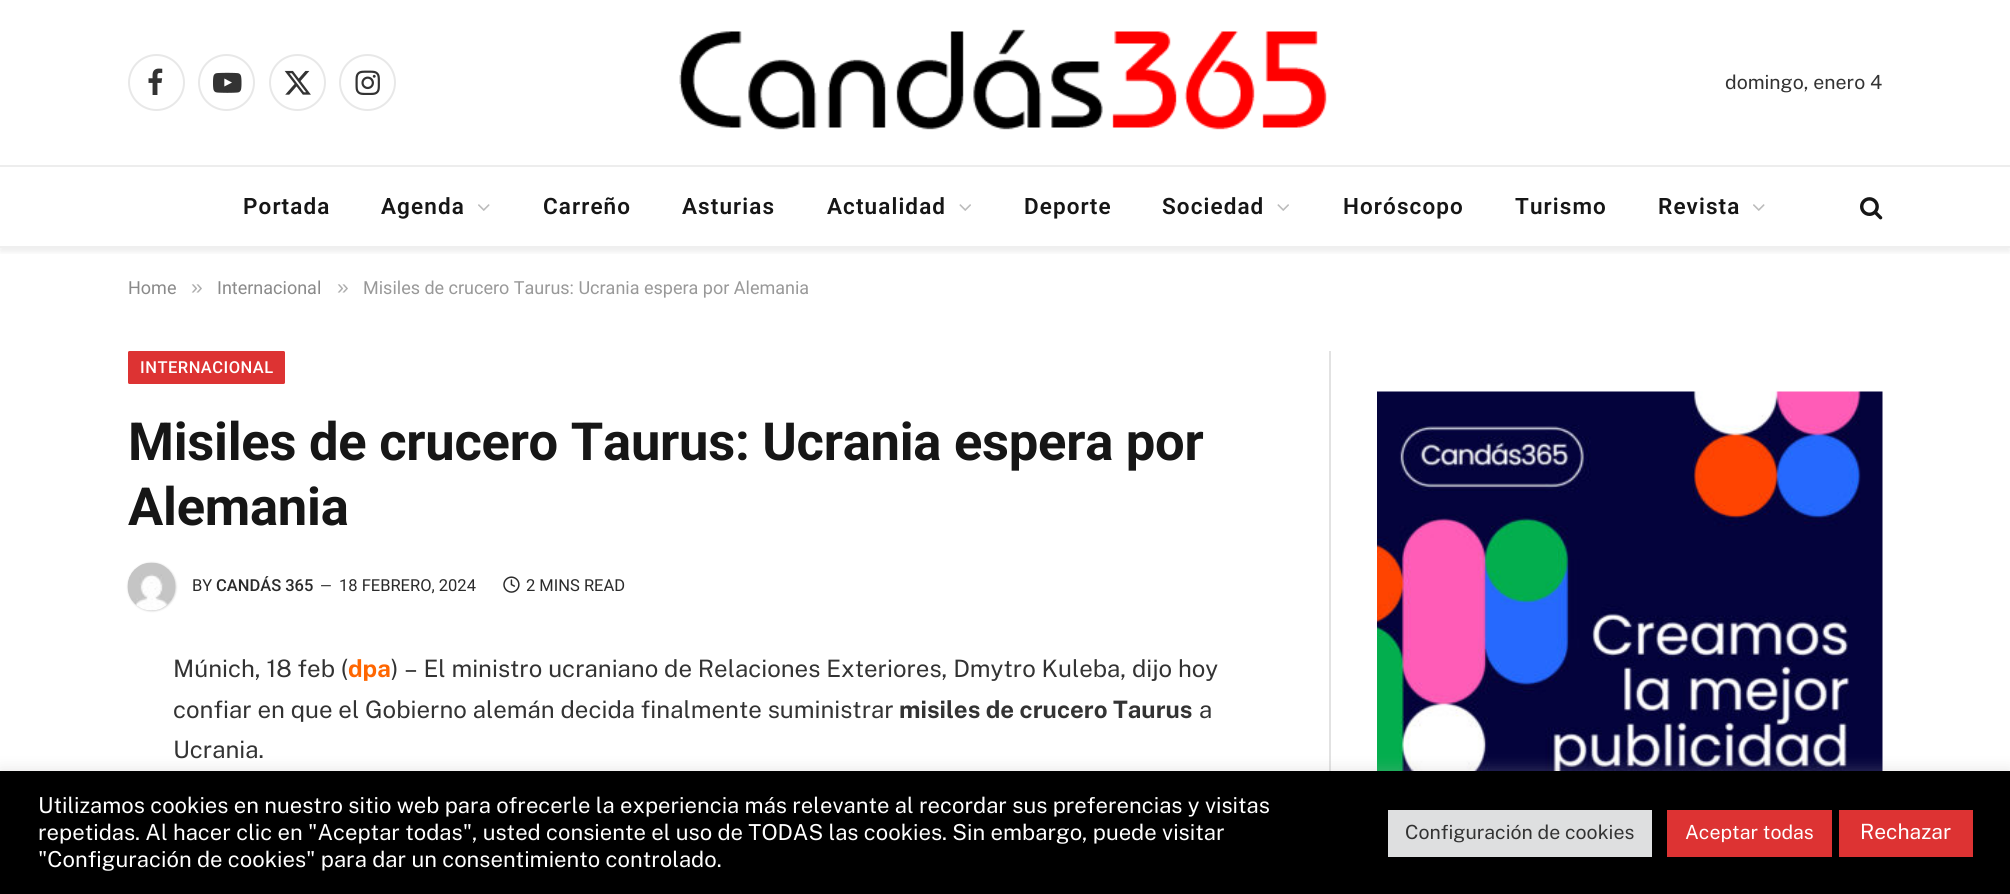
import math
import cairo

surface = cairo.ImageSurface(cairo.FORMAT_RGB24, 2010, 894)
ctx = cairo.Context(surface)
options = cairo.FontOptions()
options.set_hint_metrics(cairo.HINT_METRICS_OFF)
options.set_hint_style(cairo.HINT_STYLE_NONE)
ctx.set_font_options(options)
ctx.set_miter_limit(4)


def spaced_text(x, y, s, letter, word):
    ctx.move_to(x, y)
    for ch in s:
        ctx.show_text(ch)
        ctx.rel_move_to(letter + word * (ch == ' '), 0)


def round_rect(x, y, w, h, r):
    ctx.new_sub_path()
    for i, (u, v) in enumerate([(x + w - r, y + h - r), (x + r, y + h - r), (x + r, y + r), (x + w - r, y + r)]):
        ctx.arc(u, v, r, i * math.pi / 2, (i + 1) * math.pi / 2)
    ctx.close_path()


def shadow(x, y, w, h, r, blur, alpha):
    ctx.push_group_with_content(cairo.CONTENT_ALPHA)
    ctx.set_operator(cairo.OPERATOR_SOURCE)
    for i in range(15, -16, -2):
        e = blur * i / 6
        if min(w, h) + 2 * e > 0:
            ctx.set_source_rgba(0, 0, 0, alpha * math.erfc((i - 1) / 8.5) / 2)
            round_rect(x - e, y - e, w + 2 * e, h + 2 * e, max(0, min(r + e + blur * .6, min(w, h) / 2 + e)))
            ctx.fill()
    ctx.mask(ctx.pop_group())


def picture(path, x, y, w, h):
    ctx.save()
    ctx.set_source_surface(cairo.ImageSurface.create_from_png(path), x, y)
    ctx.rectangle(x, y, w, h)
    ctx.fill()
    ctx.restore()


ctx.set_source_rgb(1, 1, 1)
ctx.paint()
ctx.save()
ctx.rectangle(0, 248, 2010, 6)
ctx.clip()
ctx.set_source_rgb(0, 0, 0)
shadow(0, 5, 2010, 247, 0, 3, 0.07)
ctx.restore()
ctx.arc(156.5, 82.5, 27.5, 0, 2 * math.pi)
ctx.set_source_rgb(0.91, 0.91, 0.91)
ctx.stroke()
picture("img1.png", 148, 68, 15, 27)
ctx.arc(226.5, 82.5, 27.5, 0, 2 * math.pi)
ctx.stroke()
picture("img2.png", 213, 72, 29, 21)
ctx.arc(297.5, 82.5, 27.5, 0, 2 * math.pi)
ctx.stroke()
picture("img3.png", 284, 70, 27, 25)
ctx.arc(367.5, 82.5, 27.5, 0, 2 * math.pi)
ctx.stroke()
picture("img4.png", 355, 70, 25, 25)
picture("img5.png", 679, 29, 648, 101)
ctx.select_font_face("Public Sans")
ctx.set_font_size(19.5)
ctx.set_source_rgb(0.2, 0.2, 0.2)
ctx.move_to(1725, 89)
ctx.show_text("domingo, enero 4")
ctx.set_source_rgb(0.929, 0.929, 0.929)
ctx.rectangle(0, 165, 2010, 2)
ctx.fill()
ctx.set_source_rgb(0.937, 0.937, 0.937)
ctx.rectangle(0, 246, 2010, 2)
ctx.fill()
ctx.select_font_face("Roboto SemiBold")
ctx.set_font_size(22.5)
ctx.set_source_rgb(0.086, 0.086, 0.086)
spaced_text(243, 214, "Portada", 1.1, 0)
spaced_text(381, 214, "Agenda", 1.1, 0)
picture("img6.png", 478, 204, 12, 7)
spaced_text(543, 214, "Carreño", 1.1, 0)
spaced_text(682, 214, "Asturias", 1.1, 0)
spaced_text(827, 214, "Actualidad", 1.1, 0)
picture("img7.png", 959, 204, 12, 7)
spaced_text(1024, 214, "Deporte", 1.1, 0)
spaced_text(1162, 214, "Sociedad", 1.1, 0)
picture("img7.png", 1277, 204, 12, 7)
spaced_text(1343, 214, "Horóscopo", 1.1, 0)
spaced_text(1515, 214, "Turismo", 1.1, 0)
spaced_text(1658, 214, "Revista", 1.1, 0)
picture("img6.png", 1753, 204, 12, 7)
picture("img8.png", 1860, 197, 23, 23)
ctx.select_font_face("Roboto")
ctx.set_font_size(18)
ctx.set_source_rgb(0.541, 0.541, 0.541)
ctx.move_to(128, 294)
ctx.show_text("Home")
ctx.select_font_face("Liberation Sans")
ctx.set_font_size(21)
ctx.set_source_rgb(0.678, 0.678, 0.678)
ctx.move_to(191, 294)
ctx.show_text("»")
ctx.select_font_face("Roboto")
ctx.set_font_size(18)
ctx.set_source_rgb(0.541, 0.541, 0.541)
ctx.move_to(217, 294)
ctx.show_text("Internacional")
ctx.select_font_face("Liberation Sans")
ctx.set_font_size(21)
ctx.set_source_rgb(0.678, 0.678, 0.678)
ctx.move_to(337, 294)
ctx.show_text("»")
ctx.select_font_face("Roboto")
ctx.set_font_size(18)
ctx.set_source_rgb(0.6, 0.6, 0.6)
ctx.move_to(363, 294)
ctx.show_text("Misiles de crucero Taurus: Ucrania espera por Alemania")
ctx.set_source_rgb(0.867, 0.2, 0.2)
round_rect(128, 351, 157, 33, 1.5)
ctx.fill()
ctx.select_font_face("Roboto Medium")
ctx.set_font_size(16.5)
ctx.set_source_rgb(1, 1, 1)
spaced_text(140, 373, "INTERNACIONAL", 0.5, 0)
ctx.select_font_face("Roboto", cairo.FONT_SLANT_NORMAL, cairo.FONT_WEIGHT_BOLD)
ctx.set_font_size(52.5)
ctx.set_source_rgb(0.086, 0.086, 0.086)
spaced_text(128, 460, "Misiles de crucero Taurus: Ucrania espera por", -0.25, 0)
spaced_text(128, 525, "Alemania", -0.25, 0)
ctx.set_source_rgb(0, 0, 0)
shadow(128, 563, 48, 48, 24, 1, 0.2)
picture("img9.png", 127, 562, 49, 49)
ctx.select_font_face("Roboto")
ctx.set_font_size(16.5)
ctx.set_source_rgb(0.169, 0.169, 0.169)
ctx.move_to(192, 591)
ctx.show_text("BY")
ctx.select_font_face("Roboto Medium")
ctx.move_to(216, 591)
ctx.show_text("CANDÁS 365")
ctx.select_font_face("Roboto")
ctx.set_font_size(15)
ctx.move_to(320, 591)
ctx.show_text("—")
ctx.set_font_size(16.5)
ctx.move_to(339, 591)
ctx.show_text("18 FEBRERO, 2024")
picture("img10.png", 503, 576, 17, 17)
ctx.move_to(526, 591)
ctx.show_text("2 MINS READ")
ctx.select_font_face("Public Sans")
ctx.set_font_size(24)
ctx.set_source_rgb(0.2, 0.2, 0.2)
ctx.move_to(173, 677)
ctx.show_text("Múnich, 18 feb (")
ctx.select_font_face("Public Sans", cairo.FONT_SLANT_NORMAL, cairo.FONT_WEIGHT_BOLD)
ctx.set_source_rgb(1, 0.4, 0)
ctx.move_to(348, 677)
ctx.show_text("dpa")
ctx.select_font_face("Public Sans")
ctx.set_source_rgb(0.2, 0.2, 0.2)
ctx.move_to(391, 677)
ctx.show_text(") – El ministro ucraniano de Relaciones Exteriores, Dmytro Kuleba, dijo hoy")
ctx.move_to(173, 718)
ctx.show_text("confiar en que el Gobierno alemán decida finalmente suministrar")
ctx.select_font_face("Public Sans", cairo.FONT_SLANT_NORMAL, cairo.FONT_WEIGHT_BOLD)
ctx.move_to(899, 718)
ctx.show_text("misiles de crucero Taurus")
ctx.select_font_face("Public Sans")
ctx.move_to(1199, 718)
ctx.show_text("a")
ctx.move_to(173, 758)
ctx.show_text("Ucrania.")
ctx.set_source_rgb(0.886, 0.886, 0.886)
ctx.rectangle(1329, 351, 2, 420)
ctx.fill()
picture("img11.png", 1377, 391, 506, 380)
ctx.set_source_rgb(0.675, 0.671, 0.671)
shadow(0, 770, 2010, 123, 0, 7.5, 0.3)
ctx.set_source_rgb(0, 0, 0)
ctx.rectangle(0, 771, 2010, 123)
ctx.fill()
ctx.set_font_size(22)
ctx.set_source_rgb(1, 1, 1)
ctx.move_to(38, 813)
ctx.show_text("Utilizamos cookies en nuestro sitio web para ofrecerle la experiencia más relevante al recordar sus preferencias y visitas")
ctx.move_to(38, 840)
ctx.show_text("repetidas. Al hacer clic en \"Aceptar todas\", usted consiente el uso de TODAS las cookies. Sin embargo, puede visitar")
ctx.move_to(38, 867)
ctx.show_text("\"Configuración de cookies\" para dar un consentimiento controlado.")
ctx.set_source_rgb(0.871, 0.875, 0.878)
ctx.rectangle(1388, 810, 264, 47)
ctx.fill()
ctx.set_font_size(19.5)
ctx.set_source_rgb(0.2, 0.2, 0.2)
ctx.move_to(1405, 839)
ctx.show_text("Configuración de cookies")
ctx.set_source_rgb(0.867, 0.2, 0.2)
ctx.rectangle(1667, 810, 165, 47)
ctx.fill()
ctx.set_source_rgb(1, 1, 1)
ctx.move_to(1685, 839)
ctx.show_text("Aceptar todas")
ctx.set_source_rgb(0.867, 0.2, 0.2)
ctx.rectangle(1839, 810, 134, 47)
ctx.fill()
ctx.set_font_size(21)
ctx.set_source_rgb(1, 1, 1)
ctx.move_to(1860, 839)
ctx.show_text("Rechazar")
surface.write_to_png("page.png")
